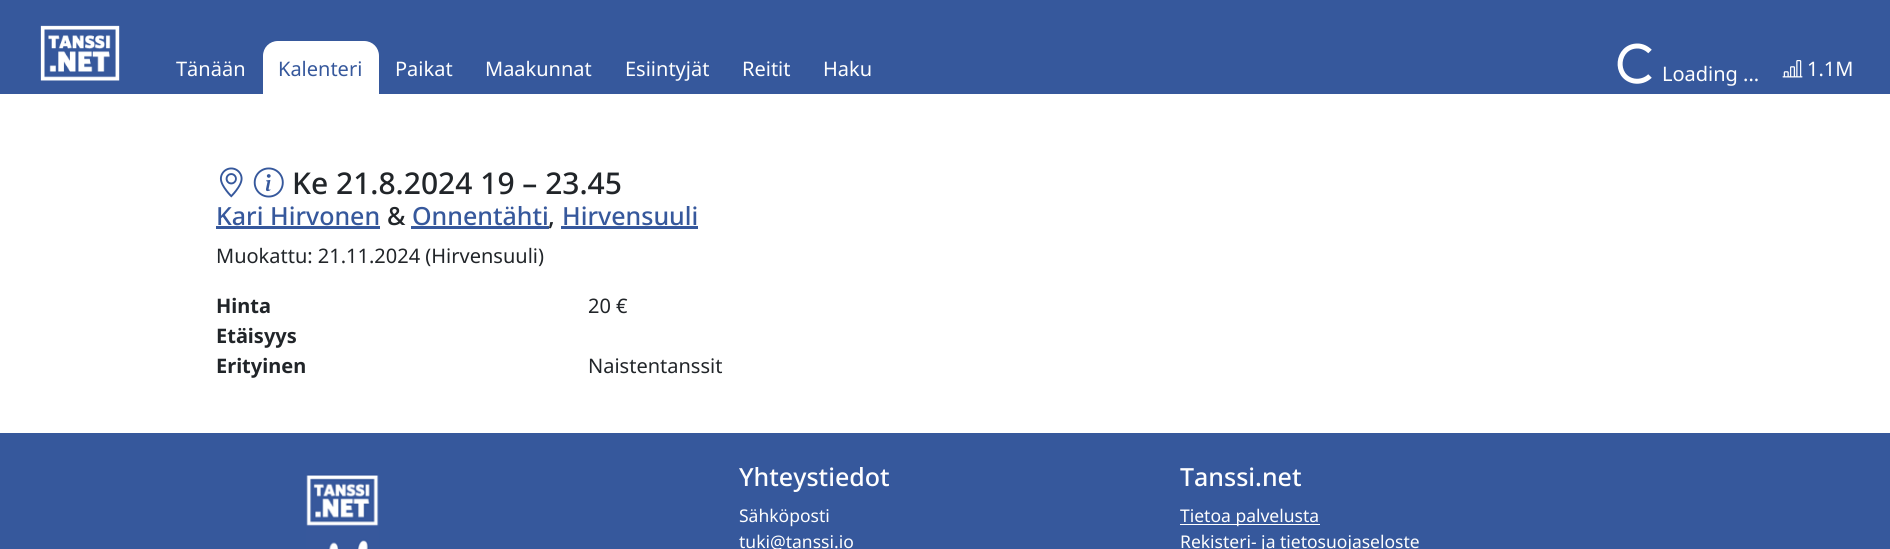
import math
import cairo

surface = cairo.ImageSurface(cairo.FORMAT_RGB24, 1890, 549)
ctx = cairo.Context(surface)
options = cairo.FontOptions()
options.set_hint_metrics(cairo.HINT_METRICS_OFF)
options.set_hint_style(cairo.HINT_STYLE_NONE)
ctx.set_font_options(options)
ctx.set_miter_limit(4)


def picture(path, x, y, w, h):
    ctx.save()
    ctx.set_source_surface(cairo.ImageSurface.create_from_png(path), x, y)
    ctx.rectangle(x, y, w, h)
    ctx.fill()
    ctx.restore()


ctx.set_source_rgb(1, 1, 1)
ctx.paint()
ctx.set_source_rgb(0.212, 0.345, 0.612)
ctx.rectangle(0, 0, 1890, 94)
ctx.fill()
picture("img1.png", 40, 25, 80, 56)
ctx.select_font_face("Noto Sans")
ctx.set_font_size(20)
ctx.set_source_rgb(0.996, 0.996, 0.996)
ctx.move_to(176, 76)
ctx.show_text("Tänään")
ctx.set_source_rgb(1, 1, 1)
ctx.new_path()
ctx.move_to(278, 41)
ctx.line_to(364, 41)
ctx.curve_to(372.5, 41, 379, 47.5, 379, 56)
ctx.line_to(379, 94)
ctx.line_to(263, 94)
ctx.line_to(263, 56)
ctx.curve_to(263, 47.5, 269.5, 41, 278, 41)
ctx.close_path()
ctx.fill()
ctx.set_source_rgb(0.212, 0.345, 0.612)
ctx.move_to(278, 76)
ctx.show_text("Kalenteri")
ctx.set_source_rgb(0.996, 0.996, 0.996)
ctx.move_to(395, 76)
ctx.show_text("Paikat")
ctx.move_to(485, 76)
ctx.show_text("Maakunnat")
ctx.move_to(625, 76)
ctx.show_text("Esiintyjät")
ctx.move_to(742, 76)
ctx.show_text("Reitit")
ctx.move_to(823, 76)
ctx.show_text("Haku")
ctx.new_path()
ctx.move_to(1650, 76)
ctx.curve_to(1646, 80, 1640, 82, 1634, 81)
ctx.curve_to(1613.5, 77, 1616.5, 46, 1637.5, 46)
ctx.curve_to(1642, 46, 1646.5, 48, 1650, 51.5)
ctx.set_source_rgb(1, 1, 1)
ctx.set_line_width(5)
ctx.stroke()
ctx.set_source_rgb(0.996, 0.996, 0.996)
ctx.move_to(1662, 81)
ctx.show_text("Loading ...")
picture("img2.png", 1782, 60, 21, 18)
ctx.move_to(1807, 76)
ctx.show_text("1.1M")
picture("img3.png", 219, 167, 24, 31)
picture("img4.png", 253, 167, 31, 31)
ctx.select_font_face("Noto Sans Medium")
ctx.set_font_size(30)
ctx.set_source_rgb(0.129, 0.145, 0.161)
ctx.move_to(292, 194)
ctx.show_text("Ke 21.8.2024 19 – 23.45")
ctx.set_font_size(25)
ctx.set_source_rgb(0.212, 0.345, 0.612)
ctx.move_to(216, 225)
ctx.show_text("Kari Hirvonen")
ctx.rectangle(216, 226, 164, 3)
ctx.fill()
ctx.set_source_rgb(0.129, 0.145, 0.161)
ctx.move_to(387, 225)
ctx.show_text("&")
ctx.set_source_rgb(0.212, 0.345, 0.612)
ctx.move_to(412, 225)
ctx.show_text("Onnentähti")
ctx.rectangle(411, 226, 138, 3)
ctx.fill()
ctx.set_source_rgb(0.129, 0.145, 0.161)
ctx.move_to(548, 225)
ctx.show_text(",")
ctx.set_source_rgb(0.212, 0.345, 0.612)
ctx.move_to(562, 225)
ctx.show_text("Hirvensuuli")
ctx.rectangle(561, 226, 137, 3)
ctx.fill()
ctx.select_font_face("Noto Sans")
ctx.set_font_size(20)
ctx.set_source_rgb(0.129, 0.145, 0.161)
ctx.move_to(216, 263)
ctx.show_text("Muokattu: 21.11.2024 (Hirvensuuli)")
ctx.select_font_face("Noto Sans", cairo.FONT_SLANT_NORMAL, cairo.FONT_WEIGHT_BOLD)
ctx.move_to(216, 313)
ctx.show_text("Hinta")
ctx.select_font_face("Noto Sans")
ctx.move_to(588, 313)
ctx.show_text("20 €")
ctx.select_font_face("Noto Sans", cairo.FONT_SLANT_NORMAL, cairo.FONT_WEIGHT_BOLD)
ctx.move_to(216, 343)
ctx.show_text("Etäisyys")
ctx.move_to(216, 373)
ctx.show_text("Erityinen")
ctx.select_font_face("Noto Sans")
ctx.move_to(588, 373)
ctx.show_text("Naistentanssit")
ctx.set_source_rgb(0.212, 0.345, 0.612)
ctx.rectangle(0, 433, 1890, 116)
ctx.fill()
picture("img5.png", 306, 474, 73, 75)
ctx.select_font_face("Noto Sans Medium")
ctx.set_font_size(25)
ctx.set_source_rgb(0.996, 0.996, 0.996)
ctx.move_to(739, 486)
ctx.show_text("Yhteystiedot")
ctx.select_font_face("Noto Sans")
ctx.set_font_size(17.5)
ctx.move_to(739, 522)
ctx.show_text("Sähköposti")
ctx.move_to(739, 548)
ctx.show_text("tuki@tanssi.io")
ctx.select_font_face("Noto Sans Medium")
ctx.set_font_size(25)
ctx.move_to(1180, 486)
ctx.show_text("Tanssi.net")
ctx.set_source_rgb(1, 1, 1)
ctx.rectangle(1180, 524, 140, 1)
ctx.fill()
ctx.select_font_face("Noto Sans")
ctx.set_font_size(17.5)
ctx.set_source_rgb(0.996, 0.996, 0.996)
ctx.move_to(1180, 522)
ctx.show_text("Tietoa palvelusta")
ctx.move_to(1180, 548)
ctx.show_text("Rekisteri- ja tietosuojaseloste")
surface.write_to_png("page.png")
